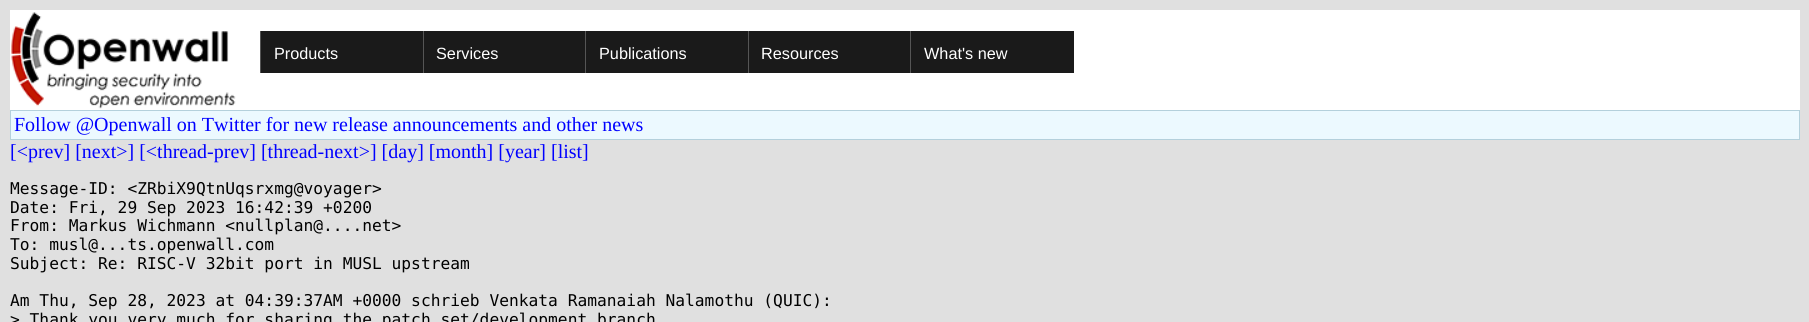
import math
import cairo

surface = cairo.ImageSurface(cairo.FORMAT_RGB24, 1809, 322)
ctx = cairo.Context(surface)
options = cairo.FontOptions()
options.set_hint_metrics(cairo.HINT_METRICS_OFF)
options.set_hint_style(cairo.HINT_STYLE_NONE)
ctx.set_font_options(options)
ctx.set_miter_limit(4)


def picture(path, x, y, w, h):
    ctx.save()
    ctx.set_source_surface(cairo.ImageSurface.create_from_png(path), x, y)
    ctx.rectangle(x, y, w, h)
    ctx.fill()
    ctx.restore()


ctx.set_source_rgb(0.878, 0.878, 0.878)
ctx.paint()
ctx.set_source_rgb(1, 1, 1)
ctx.rectangle(10, 10, 1790, 100)
ctx.fill()
picture("img1.png", 11, 12, 225, 97)
ctx.set_source_rgb(0.102, 0.102, 0.102)
ctx.rectangle(261, 31, 162, 42)
ctx.fill()
ctx.set_source_rgb(0.333, 0.333, 0.333)
ctx.rectangle(260, 31, 1, 42)
ctx.fill()
ctx.select_font_face("Liberation Sans")
ctx.set_font_size(16.25)
ctx.set_source_rgb(1, 1, 1)
ctx.move_to(274, 59)
ctx.show_text("Products")
ctx.set_source_rgb(0.102, 0.102, 0.102)
ctx.rectangle(424, 31, 161, 42)
ctx.fill()
ctx.set_source_rgb(0.333, 0.333, 0.333)
ctx.rectangle(423, 31, 1, 42)
ctx.fill()
ctx.set_source_rgb(1, 1, 1)
ctx.move_to(436, 59)
ctx.show_text("Services")
ctx.set_source_rgb(0.102, 0.102, 0.102)
ctx.rectangle(586, 31, 162, 42)
ctx.fill()
ctx.set_source_rgb(0.333, 0.333, 0.333)
ctx.rectangle(585, 31, 1, 42)
ctx.fill()
ctx.set_source_rgb(1, 1, 1)
ctx.move_to(599, 59)
ctx.show_text("Publications")
ctx.set_source_rgb(0.102, 0.102, 0.102)
ctx.rectangle(749, 31, 161, 42)
ctx.fill()
ctx.set_source_rgb(0.333, 0.333, 0.333)
ctx.rectangle(748, 31, 1, 42)
ctx.fill()
ctx.set_source_rgb(1, 1, 1)
ctx.move_to(761, 59)
ctx.show_text("Resources")
ctx.set_source_rgb(0.102, 0.102, 0.102)
ctx.rectangle(911, 31, 163, 42)
ctx.fill()
ctx.set_source_rgb(0.333, 0.333, 0.333)
ctx.rectangle(910, 31, 1, 42)
ctx.fill()
ctx.set_source_rgb(1, 1, 1)
ctx.move_to(924, 59)
ctx.show_text("What's new")
ctx.set_source_rgb(0.706, 0.816, 0.863)
ctx.rectangle(10, 110, 1790, 30)
ctx.fill()
ctx.set_source_rgb(0.925, 0.973, 1)
ctx.rectangle(11, 111, 1788, 28)
ctx.fill()
ctx.select_font_face("Liberation Serif")
ctx.set_font_size(20)
ctx.set_source_rgb(0, 0, 1)
ctx.move_to(14, 131)
ctx.show_text("Follow @Openwall on Twitter for new release announcements and other news")
ctx.move_to(10, 158)
ctx.show_text("[<prev] [next>] [<thread-prev] [thread-next>] [day] [month] [year] [list]")
ctx.select_font_face("DejaVu Sans Mono")
ctx.set_font_size(16.25)
ctx.set_source_rgb(0, 0, 0)
ctx.move_to(10, 194)
ctx.show_text("Message-ID: <ZRbiX9QtnUqsrxmg@voyager>")
ctx.move_to(10, 213)
ctx.show_text("Date: Fri, 29 Sep 2023 16:42:39 +0200")
ctx.move_to(10, 231)
ctx.show_text("From: Markus Wichmann <nullplan@....net>")
ctx.move_to(10, 250)
ctx.show_text("To: musl@...ts.openwall.com")
ctx.move_to(10, 269)
ctx.show_text("Subject: Re: RISC-V 32bit port in MUSL upstream")
ctx.move_to(10, 306)
ctx.show_text("Am Thu, Sep 28, 2023 at 04:39:37AM +0000 schrieb Venkata Ramanaiah Nalamothu (QUIC):")
ctx.move_to(10, 325)
ctx.show_text("> Thank you very much for sharing the patch set/development branch")
surface.write_to_png("page.png")
